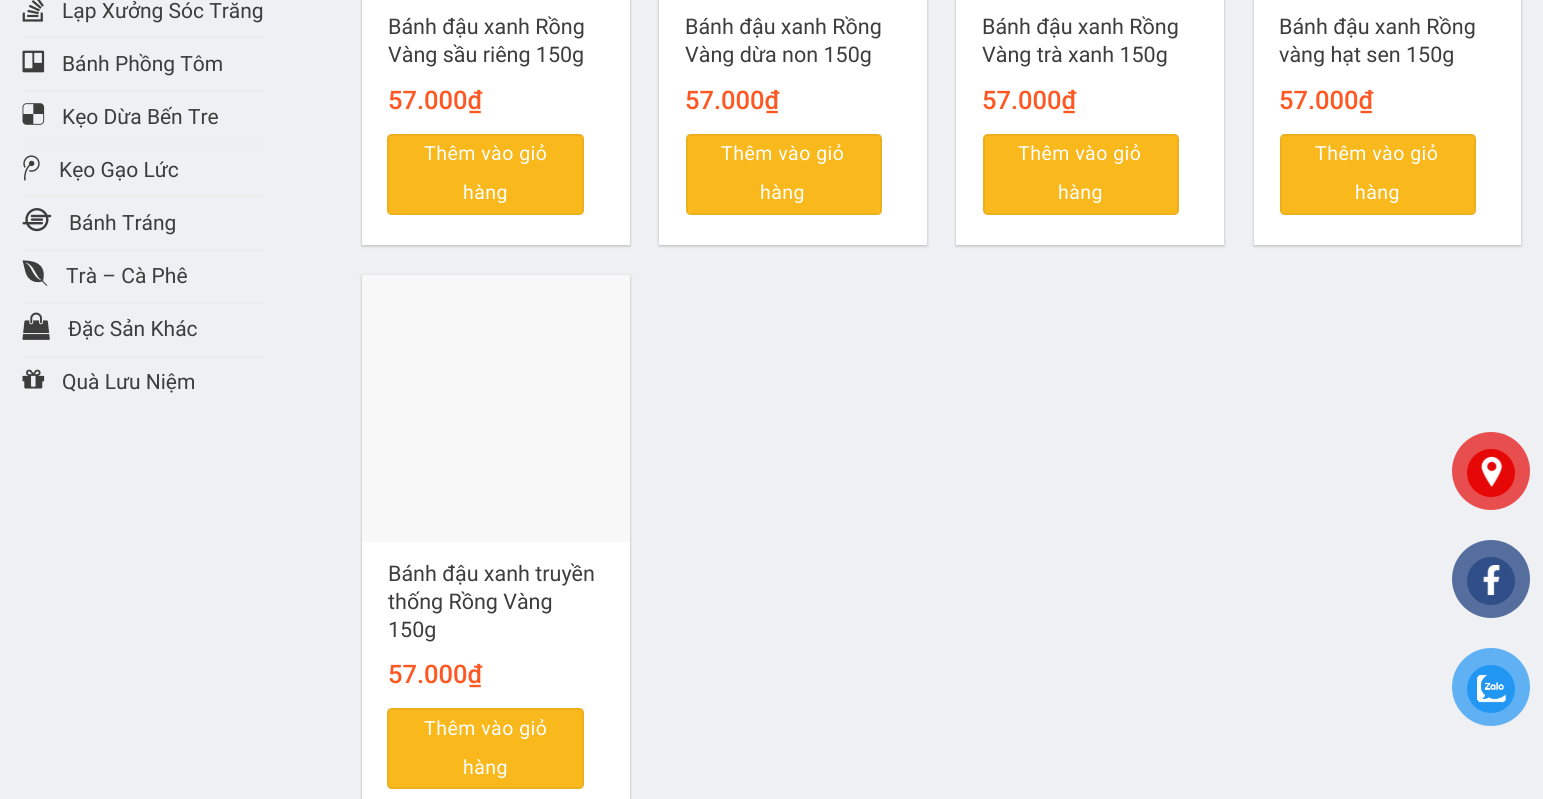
import math
import cairo

surface = cairo.ImageSurface(cairo.FORMAT_RGB24, 1543, 799)
ctx = cairo.Context(surface)
options = cairo.FontOptions()
options.set_hint_metrics(cairo.HINT_METRICS_OFF)
options.set_hint_style(cairo.HINT_STYLE_NONE)
ctx.set_font_options(options)
ctx.set_miter_limit(4)


def spaced_text(x, y, s, letter, word):
    ctx.move_to(x, y)
    for ch in s:
        ctx.show_text(ch)
        ctx.rel_move_to(letter + word * (ch == ' '), 0)


def round_rect(x, y, w, h, r):
    ctx.new_sub_path()
    for i, (u, v) in enumerate([(x + w - r, y + h - r), (x + r, y + h - r), (x + r, y + r), (x + w - r, y + r)]):
        ctx.arc(u, v, r, i * math.pi / 2, (i + 1) * math.pi / 2)
    ctx.close_path()


def shadow(x, y, w, h, r, blur, alpha):
    ctx.push_group_with_content(cairo.CONTENT_ALPHA)
    ctx.set_operator(cairo.OPERATOR_SOURCE)
    for i in range(15, -16, -2):
        e = blur * i / 6
        if min(w, h) + 2 * e > 0:
            ctx.set_source_rgba(0, 0, 0, alpha * math.erfc((i - 1) / 8.5) / 2)
            round_rect(x - e, y - e, w + 2 * e, h + 2 * e, max(0, min(r + e + blur * .6, min(w, h) / 2 + e)))
            ctx.fill()
    ctx.mask(ctx.pop_group())


def picture(path, x, y, w, h):
    ctx.save()
    ctx.set_source_surface(cairo.ImageSurface.create_from_png(path), x, y)
    ctx.rectangle(x, y, w, h)
    ctx.fill()
    ctx.restore()


ctx.set_source_rgb(0.937, 0.941, 0.953)
ctx.paint()
picture("img1.png", 22, 0, 22, 22)
ctx.select_font_face("Roboto")
ctx.set_font_size(21)
ctx.set_source_rgb(0.239, 0.239, 0.239)
ctx.move_to(62, 18)
ctx.show_text("Lạp Xưởng Sóc Trăng")
ctx.set_source_rgb(0.925, 0.925, 0.925)
ctx.rectangle(23, 36, 241, 2)
ctx.fill()
picture("img2.png", 22, 50, 23, 23)
ctx.set_source_rgb(0.239, 0.239, 0.239)
ctx.move_to(62, 71)
ctx.show_text("Bánh Phồng Tôm")
ctx.set_source_rgb(0.925, 0.925, 0.925)
ctx.rectangle(23, 90, 241, 2)
ctx.fill()
picture("img3.png", 22, 103, 23, 22)
ctx.set_source_rgb(0.239, 0.239, 0.239)
ctx.move_to(62, 124)
ctx.show_text("Kẹo Dừa Bến Tre")
ctx.set_source_rgb(0.925, 0.925, 0.925)
ctx.rectangle(23, 143, 241, 2)
ctx.fill()
picture("img4.png", 23, 155, 17, 26)
ctx.set_source_rgb(0.239, 0.239, 0.239)
ctx.move_to(59, 177)
ctx.show_text("Kẹo Gạo Lức")
ctx.set_source_rgb(0.925, 0.925, 0.925)
ctx.rectangle(23, 195, 241, 2)
ctx.fill()
picture("img5.png", 22, 208, 30, 24)
ctx.set_source_rgb(0.239, 0.239, 0.239)
ctx.move_to(69, 230)
ctx.show_text("Bánh Tráng")
ctx.set_source_rgb(0.925, 0.925, 0.925)
ctx.rectangle(23, 249, 241, 2)
ctx.fill()
picture("img6.png", 22, 260, 26, 26)
ctx.set_source_rgb(0.239, 0.239, 0.239)
ctx.move_to(66, 283)
ctx.show_text("Trà – Cà Phê")
ctx.set_source_rgb(0.925, 0.925, 0.925)
ctx.rectangle(23, 302, 241, 2)
ctx.fill()
picture("img7.png", 22, 312, 28, 28)
ctx.set_source_rgb(0.239, 0.239, 0.239)
ctx.move_to(68, 336)
ctx.show_text("Đặc Sản Khác")
ctx.set_source_rgb(0.925, 0.925, 0.925)
ctx.rectangle(23, 356, 241, 2)
ctx.fill()
picture("img8.png", 22, 369, 23, 20)
ctx.set_source_rgb(0.239, 0.239, 0.239)
ctx.move_to(62, 389)
ctx.show_text("Quà Lưu Niệm")
ctx.set_source_rgb(0, 0, 0)
shadow(362, -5, 268, 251, 0, 1.5, 0.24)
ctx.set_source_rgb(1, 1, 1)
ctx.rectangle(362, 0, 268, 245)
ctx.fill()
ctx.set_font_size(21.5)
ctx.set_source_rgb(0.239, 0.239, 0.239)
ctx.move_to(388, 34)
ctx.show_text("Bánh đậu xanh Rồng")
ctx.move_to(388, 62)
ctx.show_text("Vàng sầu riêng 150g")
ctx.select_font_face("Roboto Medium")
ctx.set_font_size(25.5)
ctx.set_source_rgb(1, 0.341, 0.133)
ctx.move_to(388, 109)
ctx.show_text("57.000₫")
ctx.set_source_rgb(0.976, 0.722, 0.11)
round_rect(387, 134, 197, 81, 5)
ctx.fill()
ctx.rectangle(388, 135, 195, 79)
ctx.set_source_rgba(0, 0, 0, 0.05)
ctx.stroke()
ctx.select_font_face("Roboto")
ctx.set_font_size(19.5)
ctx.set_source_rgb(1, 1, 1)
spaced_text(424, 160, "Thêm vào giỏ", 0.5, 0)
spaced_text(463, 199, "hàng", 0.5, 0)
ctx.set_source_rgb(0, 0, 0)
shadow(659, -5, 268, 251, 0, 1.5, 0.24)
ctx.set_source_rgb(1, 1, 1)
ctx.rectangle(659, 0, 268, 245)
ctx.fill()
ctx.set_font_size(21.5)
ctx.set_source_rgb(0.239, 0.239, 0.239)
ctx.move_to(685, 34)
ctx.show_text("Bánh đậu xanh Rồng")
ctx.move_to(685, 62)
ctx.show_text("Vàng dừa non 150g")
ctx.select_font_face("Roboto Medium")
ctx.set_font_size(25.5)
ctx.set_source_rgb(1, 0.341, 0.133)
ctx.move_to(685, 109)
ctx.show_text("57.000₫")
ctx.set_source_rgb(0.976, 0.722, 0.11)
round_rect(686, 134, 196, 81, 5)
ctx.fill()
ctx.rectangle(687, 135, 194, 79)
ctx.set_source_rgba(0, 0, 0, 0.05)
ctx.stroke()
ctx.select_font_face("Roboto")
ctx.set_font_size(19.5)
ctx.set_source_rgb(1, 1, 1)
spaced_text(721, 160, "Thêm vào giỏ", 0.5, 0)
spaced_text(760, 199, "hàng", 0.5, 0)
ctx.set_source_rgb(0, 0, 0)
shadow(956, -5, 268, 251, 0, 1.5, 0.24)
ctx.set_source_rgb(1, 1, 1)
ctx.rectangle(956, 0, 268, 245)
ctx.fill()
ctx.set_font_size(21.5)
ctx.set_source_rgb(0.239, 0.239, 0.239)
ctx.move_to(982, 34)
ctx.show_text("Bánh đậu xanh Rồng")
ctx.move_to(982, 62)
ctx.show_text("Vàng trà xanh 150g")
ctx.select_font_face("Roboto Medium")
ctx.set_font_size(25.5)
ctx.set_source_rgb(1, 0.341, 0.133)
ctx.move_to(982, 109)
ctx.show_text("57.000₫")
ctx.set_source_rgb(0.976, 0.722, 0.11)
round_rect(983, 134, 196, 81, 5)
ctx.fill()
ctx.rectangle(984, 135, 194, 79)
ctx.set_source_rgba(0, 0, 0, 0.05)
ctx.stroke()
ctx.select_font_face("Roboto")
ctx.set_font_size(19.5)
ctx.set_source_rgb(1, 1, 1)
spaced_text(1018, 160, "Thêm vào giỏ", 0.5, 0)
spaced_text(1058, 199, "hàng", 0.5, 0)
ctx.set_source_rgb(0, 0, 0)
shadow(1254, -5, 267, 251, 0, 1.5, 0.24)
ctx.set_source_rgb(1, 1, 1)
ctx.rectangle(1254, 0, 267, 245)
ctx.fill()
ctx.set_font_size(21.5)
ctx.set_source_rgb(0.239, 0.239, 0.239)
ctx.move_to(1279, 34)
ctx.show_text("Bánh đậu xanh Rồng")
ctx.move_to(1279, 62)
ctx.show_text("vàng hạt sen 150g")
ctx.select_font_face("Roboto Medium")
ctx.set_font_size(25.5)
ctx.set_source_rgb(1, 0.341, 0.133)
ctx.move_to(1279, 109)
ctx.show_text("57.000₫")
ctx.set_source_rgb(0.976, 0.722, 0.11)
round_rect(1280, 134, 196, 81, 5)
ctx.fill()
ctx.rectangle(1281, 135, 194, 79)
ctx.set_source_rgba(0, 0, 0, 0.05)
ctx.stroke()
ctx.select_font_face("Roboto")
ctx.set_font_size(19.5)
ctx.set_source_rgb(1, 1, 1)
spaced_text(1315, 160, "Thêm vào giỏ", 0.5, 0)
spaced_text(1355, 199, "hàng", 0.5, 0)
ctx.set_source_rgb(0, 0, 0)
shadow(362, 276, 268, 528, 0, 1.5, 0.24)
ctx.set_source_rgb(1, 1, 1)
ctx.rectangle(362, 542, 268, 257)
ctx.fill()
ctx.set_source_rgb(0.969, 0.969, 0.969)
ctx.rectangle(362, 275, 268, 267)
ctx.fill()
ctx.set_font_size(21.5)
ctx.set_source_rgb(0.239, 0.239, 0.239)
ctx.move_to(388, 581)
ctx.show_text("Bánh đậu xanh truyền")
ctx.move_to(388, 609)
ctx.show_text("thống Rồng Vàng")
ctx.move_to(388, 637)
ctx.show_text("150g")
ctx.select_font_face("Roboto Medium")
ctx.set_font_size(25.5)
ctx.set_source_rgb(1, 0.341, 0.133)
ctx.move_to(388, 683)
ctx.show_text("57.000₫")
ctx.set_source_rgb(0.976, 0.722, 0.11)
round_rect(387, 708, 197, 81, 5)
ctx.fill()
ctx.rectangle(388, 709, 195, 79)
ctx.set_source_rgba(0, 0, 0, 0.05)
ctx.stroke()
ctx.select_font_face("Roboto")
ctx.set_font_size(19.5)
ctx.set_source_rgb(1, 1, 1)
spaced_text(424, 735, "Thêm vào giỏ", 0.5, 0)
spaced_text(463, 774, "hàng", 0.5, 0)
ctx.set_source_rgb(0.914, 0.306, 0.31)
ctx.new_path()
ctx.arc(1491, 471, 39, 0, 2 * math.pi)
ctx.fill()
ctx.set_source_rgb(0.902, 0.031, 0.031)
ctx.arc(1491, 473, 24, 0, 2 * math.pi)
ctx.fill()
picture("img9.png", 1481, 456, 22, 31)
ctx.set_source_rgb(0.337, 0.431, 0.616)
ctx.arc(1491, 579, 39, 0, 2 * math.pi)
ctx.fill()
ctx.set_source_rgb(0.188, 0.306, 0.533)
ctx.arc(1491, 581, 24, 0, 2 * math.pi)
ctx.fill()
picture("img10.png", 1483, 565, 17, 31)
ctx.set_source_rgb(0.373, 0.694, 0.953)
ctx.arc(1491, 687, 39, 0, 2 * math.pi)
ctx.fill()
ctx.set_source_rgb(0.129, 0.588, 0.953)
ctx.arc(1491, 689, 24, 0, 2 * math.pi)
ctx.fill()
picture("img11.png", 1477, 674, 29, 29)
surface.write_to_png("page.png")
